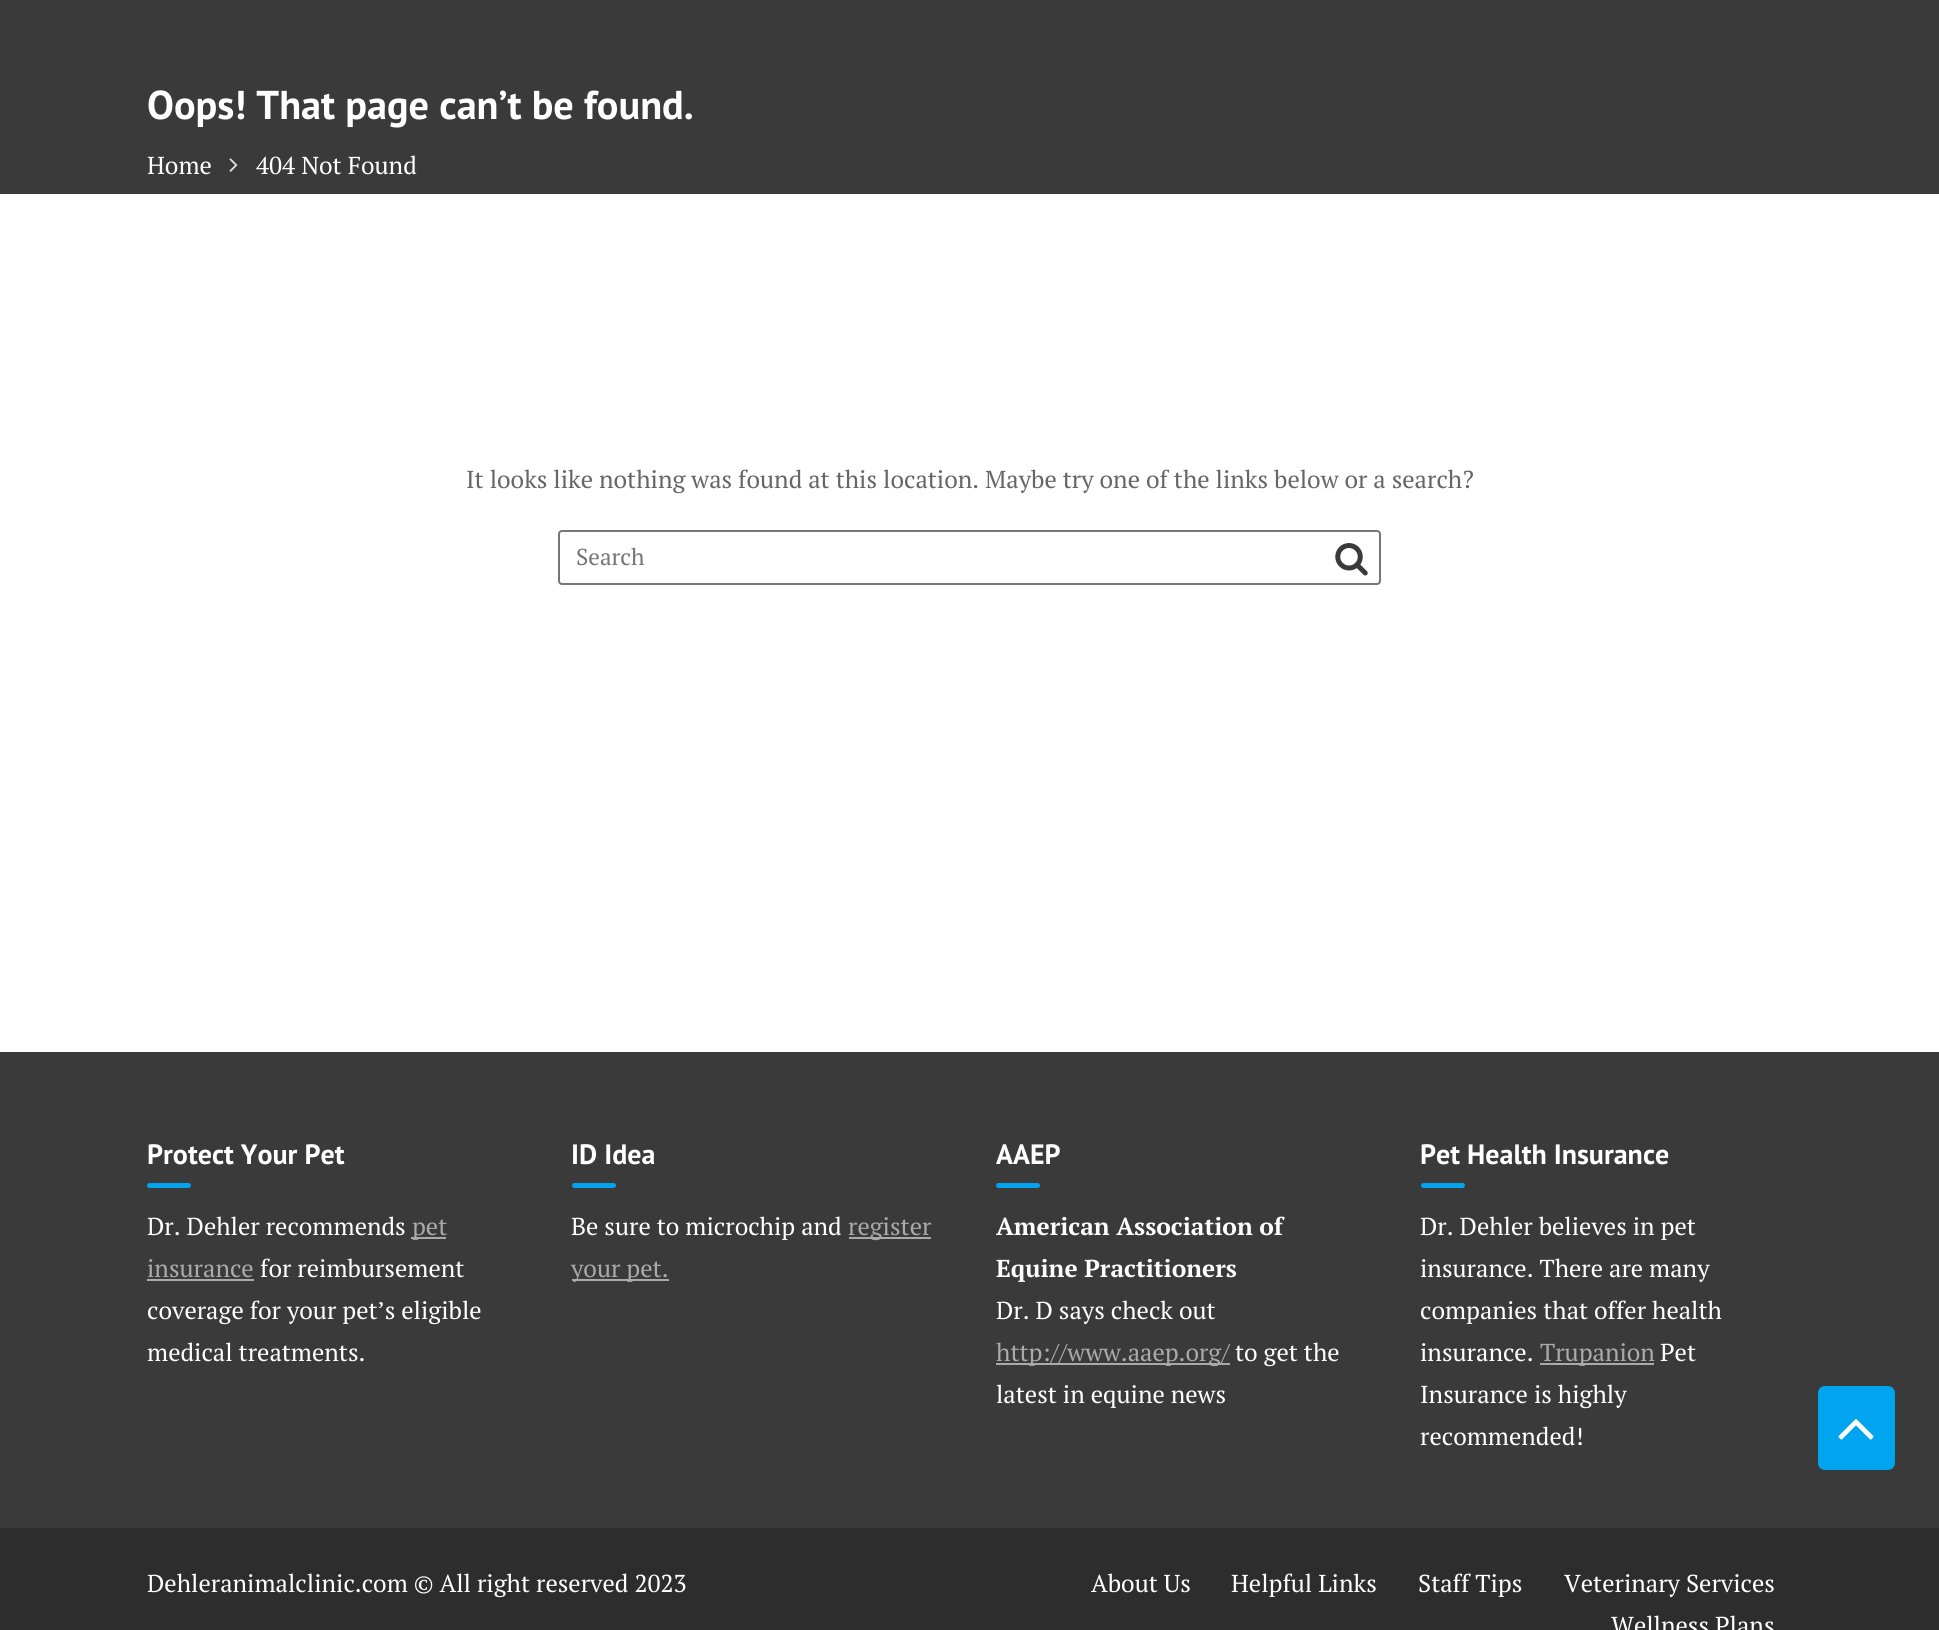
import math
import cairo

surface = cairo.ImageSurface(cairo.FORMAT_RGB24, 1939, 1630)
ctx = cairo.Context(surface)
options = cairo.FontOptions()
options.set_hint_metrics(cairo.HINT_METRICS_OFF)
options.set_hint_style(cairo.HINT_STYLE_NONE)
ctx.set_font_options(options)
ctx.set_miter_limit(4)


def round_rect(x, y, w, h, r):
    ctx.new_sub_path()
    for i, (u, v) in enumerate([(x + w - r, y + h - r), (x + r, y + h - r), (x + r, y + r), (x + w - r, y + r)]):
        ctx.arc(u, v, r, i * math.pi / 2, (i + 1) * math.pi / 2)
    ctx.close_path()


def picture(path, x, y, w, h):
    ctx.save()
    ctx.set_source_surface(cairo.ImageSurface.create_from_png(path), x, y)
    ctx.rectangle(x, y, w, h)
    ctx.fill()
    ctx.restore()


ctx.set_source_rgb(1, 1, 1)
ctx.paint()
ctx.set_source_rgb(0.227, 0.227, 0.227)
ctx.rectangle(0, 0, 1939, 194)
ctx.fill()
ctx.select_font_face("PT Sans", cairo.FONT_SLANT_NORMAL, cairo.FONT_WEIGHT_BOLD)
ctx.set_font_size(40.25)
ctx.set_source_rgb(1, 1, 1)
ctx.move_to(147, 119)
ctx.show_text("Oops! That page can’t be found.")
ctx.select_font_face("PT Serif")
ctx.set_font_size(24.5)
ctx.move_to(147, 174)
ctx.show_text("Home")
picture("img1.png", 229, 158, 9, 14)
ctx.move_to(256, 174)
ctx.show_text("404 Not Found")
ctx.set_source_rgb(0.4, 0.4, 0.4)
ctx.move_to(466, 488)
ctx.show_text("It looks like nothing was found at this location. Maybe try one of the links below or a search?")
round_rect(559, 531, 821, 53, 3)
ctx.set_source_rgb(0.463, 0.463, 0.463)
ctx.stroke()
ctx.set_font_size(23)
ctx.set_source_rgb(0.459, 0.459, 0.459)
ctx.move_to(576, 565)
ctx.show_text("Search")
picture("img2.png", 1335, 543, 33, 33)
ctx.set_source_rgb(0.227, 0.227, 0.227)
ctx.rectangle(0, 1052, 1939, 476)
ctx.fill()
ctx.select_font_face("PT Sans", cairo.FONT_SLANT_NORMAL, cairo.FONT_WEIGHT_BOLD)
ctx.set_font_size(28)
ctx.set_source_rgb(1, 1, 1)
ctx.move_to(147, 1164)
ctx.show_text("Protect Your Pet")
ctx.set_source_rgb(0, 0.643, 0.937)
round_rect(147, 1183, 44, 5, 2.5)
ctx.fill()
ctx.select_font_face("PT Serif")
ctx.set_font_size(24.5)
ctx.set_source_rgb(1, 1, 1)
ctx.move_to(147, 1235)
ctx.show_text("Dr. Dehler recommends")
ctx.set_source_rgb(0.667, 0.667, 0.667)
ctx.rectangle(411, 1237, 35, 2)
ctx.fill()
ctx.move_to(412, 1235)
ctx.show_text("pet")
ctx.move_to(147, 1277)
ctx.show_text("insurance")
ctx.rectangle(147, 1279, 107, 2)
ctx.fill()
ctx.set_source_rgb(1, 1, 1)
ctx.move_to(260, 1277)
ctx.show_text("for reimbursement")
ctx.move_to(147, 1319)
ctx.show_text("coverage for your pet’s eligible")
ctx.move_to(147, 1361)
ctx.show_text("medical treatments.")
ctx.select_font_face("PT Sans", cairo.FONT_SLANT_NORMAL, cairo.FONT_WEIGHT_BOLD)
ctx.set_font_size(28)
ctx.move_to(571, 1164)
ctx.show_text("ID Idea")
ctx.set_source_rgb(0, 0.643, 0.937)
round_rect(572, 1183, 44, 5, 2.5)
ctx.fill()
ctx.select_font_face("PT Serif")
ctx.set_font_size(24.5)
ctx.set_source_rgb(1, 1, 1)
ctx.move_to(571, 1235)
ctx.show_text("Be sure to microchip and")
ctx.set_source_rgb(0.667, 0.667, 0.667)
ctx.rectangle(849, 1237, 82, 2)
ctx.fill()
ctx.move_to(848, 1235)
ctx.show_text("register")
ctx.rectangle(572, 1279, 97, 2)
ctx.fill()
ctx.move_to(571, 1277)
ctx.show_text("your pet.")
ctx.select_font_face("PT Sans", cairo.FONT_SLANT_NORMAL, cairo.FONT_WEIGHT_BOLD)
ctx.set_font_size(28)
ctx.set_source_rgb(1, 1, 1)
ctx.move_to(996, 1164)
ctx.show_text("AAEP")
ctx.set_source_rgb(0, 0.643, 0.937)
round_rect(996, 1183, 44, 5, 2.5)
ctx.fill()
ctx.select_font_face("PT Serif", cairo.FONT_SLANT_NORMAL, cairo.FONT_WEIGHT_BOLD)
ctx.set_font_size(24.5)
ctx.set_source_rgb(1, 1, 1)
ctx.move_to(996, 1235)
ctx.show_text("American Association of")
ctx.move_to(996, 1277)
ctx.show_text("Equine Practitioners")
ctx.select_font_face("PT Serif")
ctx.move_to(996, 1319)
ctx.show_text("Dr. D says check out")
ctx.set_source_rgb(0.667, 0.667, 0.667)
ctx.rectangle(996, 1363, 234, 2)
ctx.fill()
ctx.move_to(996, 1361)
ctx.show_text("http://www.aaep.org/")
ctx.set_source_rgb(1, 1, 1)
ctx.move_to(1235, 1361)
ctx.show_text("to get the")
ctx.move_to(996, 1403)
ctx.show_text("latest in equine news")
ctx.select_font_face("PT Sans", cairo.FONT_SLANT_NORMAL, cairo.FONT_WEIGHT_BOLD)
ctx.set_font_size(28)
ctx.move_to(1420, 1164)
ctx.show_text("Pet Health Insurance")
ctx.set_source_rgb(0, 0.643, 0.937)
round_rect(1421, 1183, 44, 5, 2.5)
ctx.fill()
ctx.select_font_face("PT Serif")
ctx.set_font_size(24.5)
ctx.set_source_rgb(1, 1, 1)
ctx.move_to(1420, 1235)
ctx.show_text("Dr. Dehler believes in pet")
ctx.move_to(1420, 1277)
ctx.show_text("insurance. There are many")
ctx.move_to(1420, 1319)
ctx.show_text("companies that offer health")
ctx.move_to(1420, 1361)
ctx.show_text("insurance.")
ctx.set_source_rgb(0.667, 0.667, 0.667)
ctx.rectangle(1540, 1363, 114, 2)
ctx.fill()
ctx.move_to(1540, 1361)
ctx.show_text("Trupanion")
ctx.set_source_rgb(1, 1, 1)
ctx.move_to(1660, 1361)
ctx.show_text("Pet")
ctx.move_to(1420, 1403)
ctx.show_text("Insurance is highly")
ctx.move_to(1420, 1445)
ctx.show_text("recommended!")
ctx.set_source_rgb(0.176, 0.176, 0.176)
ctx.rectangle(0, 1528, 1939, 102)
ctx.fill()
ctx.set_source_rgb(0, 0.643, 0.937)
round_rect(1818, 1386, 77, 84, 7)
ctx.fill()
picture("img3.png", 1838, 1419, 36, 21)
ctx.set_source_rgb(1, 1, 1)
ctx.move_to(147, 1592)
ctx.show_text("Dehleranimalclinic.com © All right reserved 2023")
ctx.move_to(1091, 1592)
ctx.show_text("About Us")
ctx.move_to(1231, 1592)
ctx.show_text("Helpful Links")
ctx.move_to(1418, 1592)
ctx.show_text("Staff Tips")
ctx.move_to(1564, 1592)
ctx.show_text("Veterinary Services")
ctx.move_to(1611, 1634)
ctx.show_text("Wellness Plans")
surface.write_to_png("page.png")
